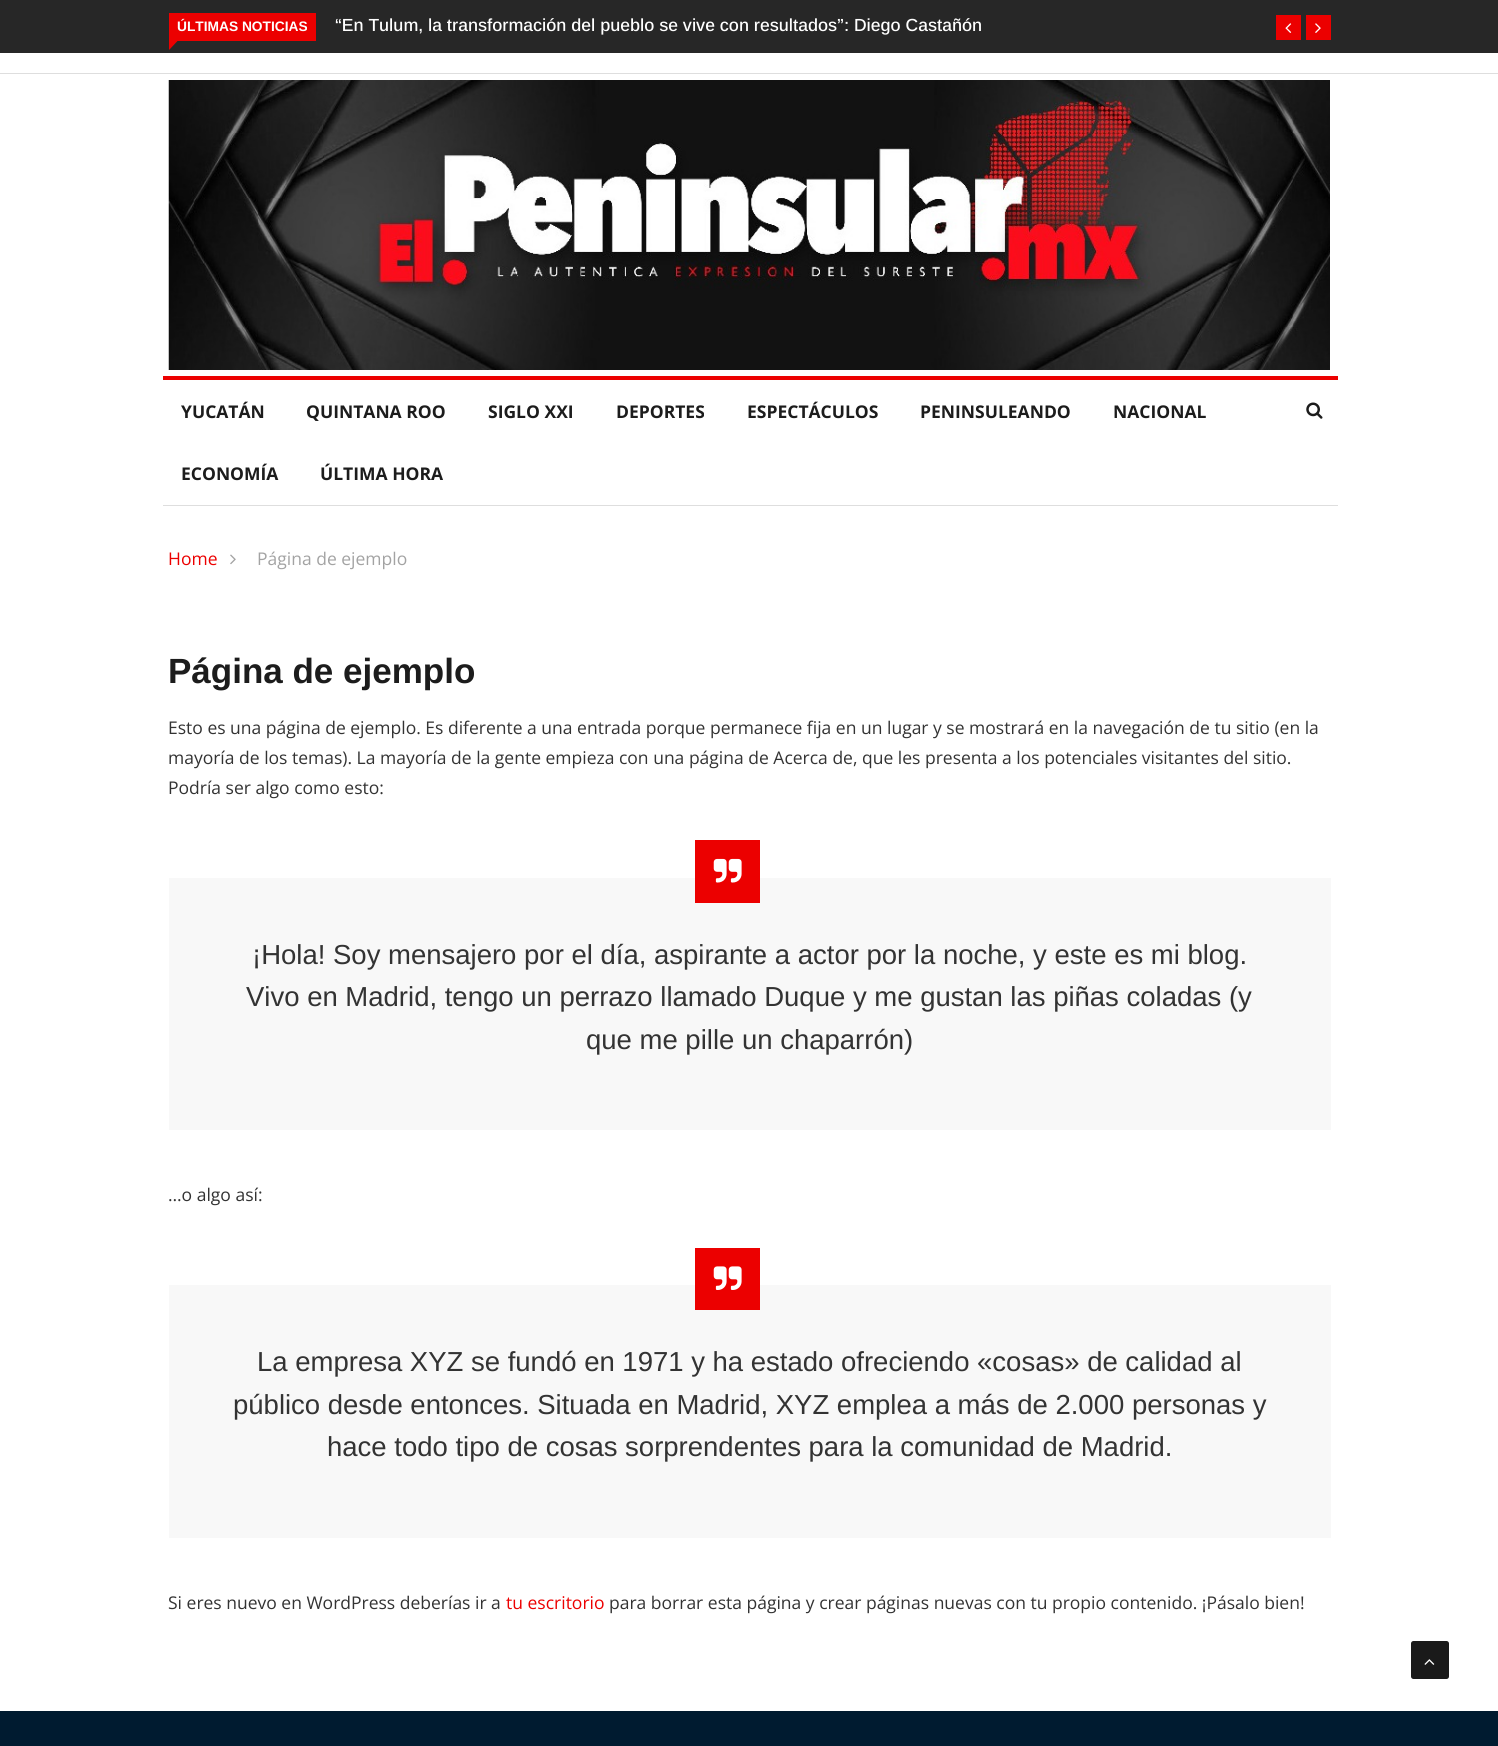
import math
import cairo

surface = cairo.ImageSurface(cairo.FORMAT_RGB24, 1498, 1746)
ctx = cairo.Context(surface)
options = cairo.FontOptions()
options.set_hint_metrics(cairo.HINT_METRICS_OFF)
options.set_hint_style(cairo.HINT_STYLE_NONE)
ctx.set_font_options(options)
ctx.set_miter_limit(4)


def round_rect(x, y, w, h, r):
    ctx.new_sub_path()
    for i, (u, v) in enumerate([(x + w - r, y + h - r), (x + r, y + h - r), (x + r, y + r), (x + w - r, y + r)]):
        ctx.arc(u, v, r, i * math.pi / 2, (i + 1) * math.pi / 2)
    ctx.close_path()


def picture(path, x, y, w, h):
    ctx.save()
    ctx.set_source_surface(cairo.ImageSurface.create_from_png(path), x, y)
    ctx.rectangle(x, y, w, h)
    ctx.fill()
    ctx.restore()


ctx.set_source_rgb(1, 1, 1)
ctx.paint()
ctx.set_source_rgb(0.153, 0.153, 0.153)
ctx.rectangle(0, 0, 1498, 53)
ctx.fill()
ctx.set_source_rgb(0.925, 0, 0)
ctx.rectangle(169, 13, 147, 28)
ctx.fill()
ctx.select_font_face("Arimo", cairo.FONT_SLANT_NORMAL, cairo.FONT_WEIGHT_BOLD)
ctx.set_font_size(13.75)
ctx.set_source_rgb(1, 1, 1)
ctx.move_to(177, 31)
ctx.show_text("ÚLTIMAS NOTICIAS")
ctx.set_source_rgb(0.925, 0, 0)
ctx.new_path()
ctx.move_to(169, 41)
ctx.line_to(177.5, 41)
ctx.line_to(169, 50)
ctx.close_path()
ctx.fill()
ctx.select_font_face("Arimo Medium")
ctx.set_font_size(17.5)
ctx.set_source_rgb(1, 1, 1)
ctx.move_to(335, 31)
ctx.show_text("“En Tulum, la transformación del pueblo se vive con resultados”: Diego Castañón")
ctx.set_source_rgb(0.925, 0, 0)
ctx.rectangle(1276, 15, 25, 25)
ctx.fill()
picture("img1.png", 1285, 23, 7, 10)
ctx.rectangle(1306, 15, 25, 25)
ctx.fill()
picture("img2.png", 1315, 23, 6, 10)
ctx.set_source_rgb(0.871, 0.871, 0.871)
ctx.rectangle(0, 73, 1498, 1)
ctx.fill()
picture("img3.png", 168, 80, 1162, 290)
ctx.set_source_rgb(0.925, 0, 0)
ctx.rectangle(163, 376, 1175, 4)
ctx.fill()
ctx.set_source_rgb(0.871, 0.871, 0.871)
ctx.rectangle(163, 505, 1175, 1)
ctx.fill()
ctx.select_font_face("Open Sans", cairo.FONT_SLANT_NORMAL, cairo.FONT_WEIGHT_BOLD)
ctx.set_source_rgb(0.11, 0.11, 0.11)
ctx.move_to(181, 418)
ctx.show_text("YUCATÁN")
ctx.move_to(306, 418)
ctx.show_text("QUINTANA ROO")
ctx.move_to(488, 418)
ctx.show_text("SIGLO XXI")
ctx.move_to(616, 418)
ctx.show_text("DEPORTES")
ctx.move_to(747, 418)
ctx.show_text("ESPECTÁCULOS")
ctx.move_to(920, 418)
ctx.show_text("PENINSULEANDO")
ctx.move_to(1113, 418)
ctx.show_text("NACIONAL")
ctx.move_to(181, 480)
ctx.show_text("ECONOMÍA")
ctx.move_to(320, 480)
ctx.show_text("ÚLTIMA HORA")
picture("img4.png", 1306, 402, 17, 17)
ctx.select_font_face("Open Sans")
ctx.set_source_rgb(0.925, 0, 0)
ctx.move_to(168, 565)
ctx.show_text("Home")
picture("img5.png", 230, 554, 6, 11)
ctx.set_source_rgb(0.639, 0.639, 0.639)
ctx.move_to(257, 565)
ctx.show_text("Página de ejemplo")
ctx.select_font_face("Arimo", cairo.FONT_SLANT_NORMAL, cairo.FONT_WEIGHT_BOLD)
ctx.set_font_size(35)
ctx.set_source_rgb(0.11, 0.11, 0.11)
ctx.move_to(168, 683)
ctx.show_text("Página de ejemplo")
ctx.select_font_face("Open Sans")
ctx.set_font_size(17.5)
ctx.set_source_rgb(0.2, 0.2, 0.2)
ctx.move_to(168, 734)
ctx.show_text("Esto es una página de ejemplo. Es diferente a una entrada porque permanece fija en un lugar y se mostrará en la navegación de tu sitio (en la")
ctx.move_to(168, 764)
ctx.show_text("mayoría de los temas). La mayoría de la gente empieza con una página de Acerca de, que les presenta a los potenciales visitantes del sitio.")
ctx.move_to(168, 794)
ctx.show_text("Podría ser algo como esto:")
ctx.set_source_rgb(0.969, 0.969, 0.969)
ctx.rectangle(169, 878, 1162, 252)
ctx.fill()
ctx.set_source_rgb(0.925, 0, 0)
ctx.rectangle(695, 840, 65, 63)
ctx.fill()
picture("img6.png", 713, 858, 29, 25)
ctx.select_font_face("Arimo")
ctx.set_font_size(27.5)
ctx.set_source_rgb(0.2, 0.2, 0.2)
ctx.move_to(252, 964)
ctx.show_text("¡Hola! Soy mensajero por el día, aspirante a actor por la noche, y este es mi blog.")
ctx.move_to(246, 1006)
ctx.show_text("Vivo en Madrid, tengo un perrazo llamado Duque y me gustan las piñas coladas (y")
ctx.move_to(586, 1049)
ctx.show_text("que me pille un chaparrón)")
ctx.select_font_face("Open Sans")
ctx.set_font_size(17.5)
ctx.move_to(168, 1201)
ctx.show_text("…o algo así:")
ctx.set_source_rgb(0.969, 0.969, 0.969)
ctx.rectangle(169, 1285, 1162, 253)
ctx.fill()
ctx.set_source_rgb(0.925, 0, 0)
ctx.rectangle(695, 1248, 65, 62)
ctx.fill()
picture("img7.png", 713, 1266, 29, 24)
ctx.select_font_face("Arimo")
ctx.set_font_size(27.5)
ctx.set_source_rgb(0.2, 0.2, 0.2)
ctx.move_to(257, 1371)
ctx.show_text("La empresa XYZ se fundó en 1971 y ha estado ofreciendo «cosas» de calidad al")
ctx.move_to(233, 1414)
ctx.show_text("público desde entonces. Situada en Madrid, XYZ emplea a más de 2.000 personas y")
ctx.move_to(327, 1456)
ctx.show_text("hace todo tipo de cosas sorprendentes para la comunidad de Madrid.")
ctx.select_font_face("Open Sans")
ctx.set_font_size(17.5)
ctx.move_to(168, 1609)
ctx.show_text("Si eres nuevo en WordPress deberías ir a")
ctx.set_source_rgb(0.925, 0, 0)
ctx.move_to(506, 1609)
ctx.show_text("tu escritorio")
ctx.set_source_rgb(0.2, 0.2, 0.2)
ctx.move_to(609, 1609)
ctx.show_text("para borrar esta página y crear páginas nuevas con tu propio contenido. ¡Pásalo bien!")
ctx.set_source_rgb(0, 0.106, 0.188)
ctx.rectangle(0, 1712, 1498, 34)
ctx.fill()
ctx.set_source_rgb(0, 0.102, 0.18)
ctx.rectangle(0, 1711, 1498, 1)
ctx.fill()
ctx.set_source_rgb(0.102, 0.102, 0.102)
round_rect(1411, 1641, 38, 38, 2.5)
ctx.fill()
picture("img8.png", 1424, 1659, 11, 6)
surface.write_to_png("page.png")
